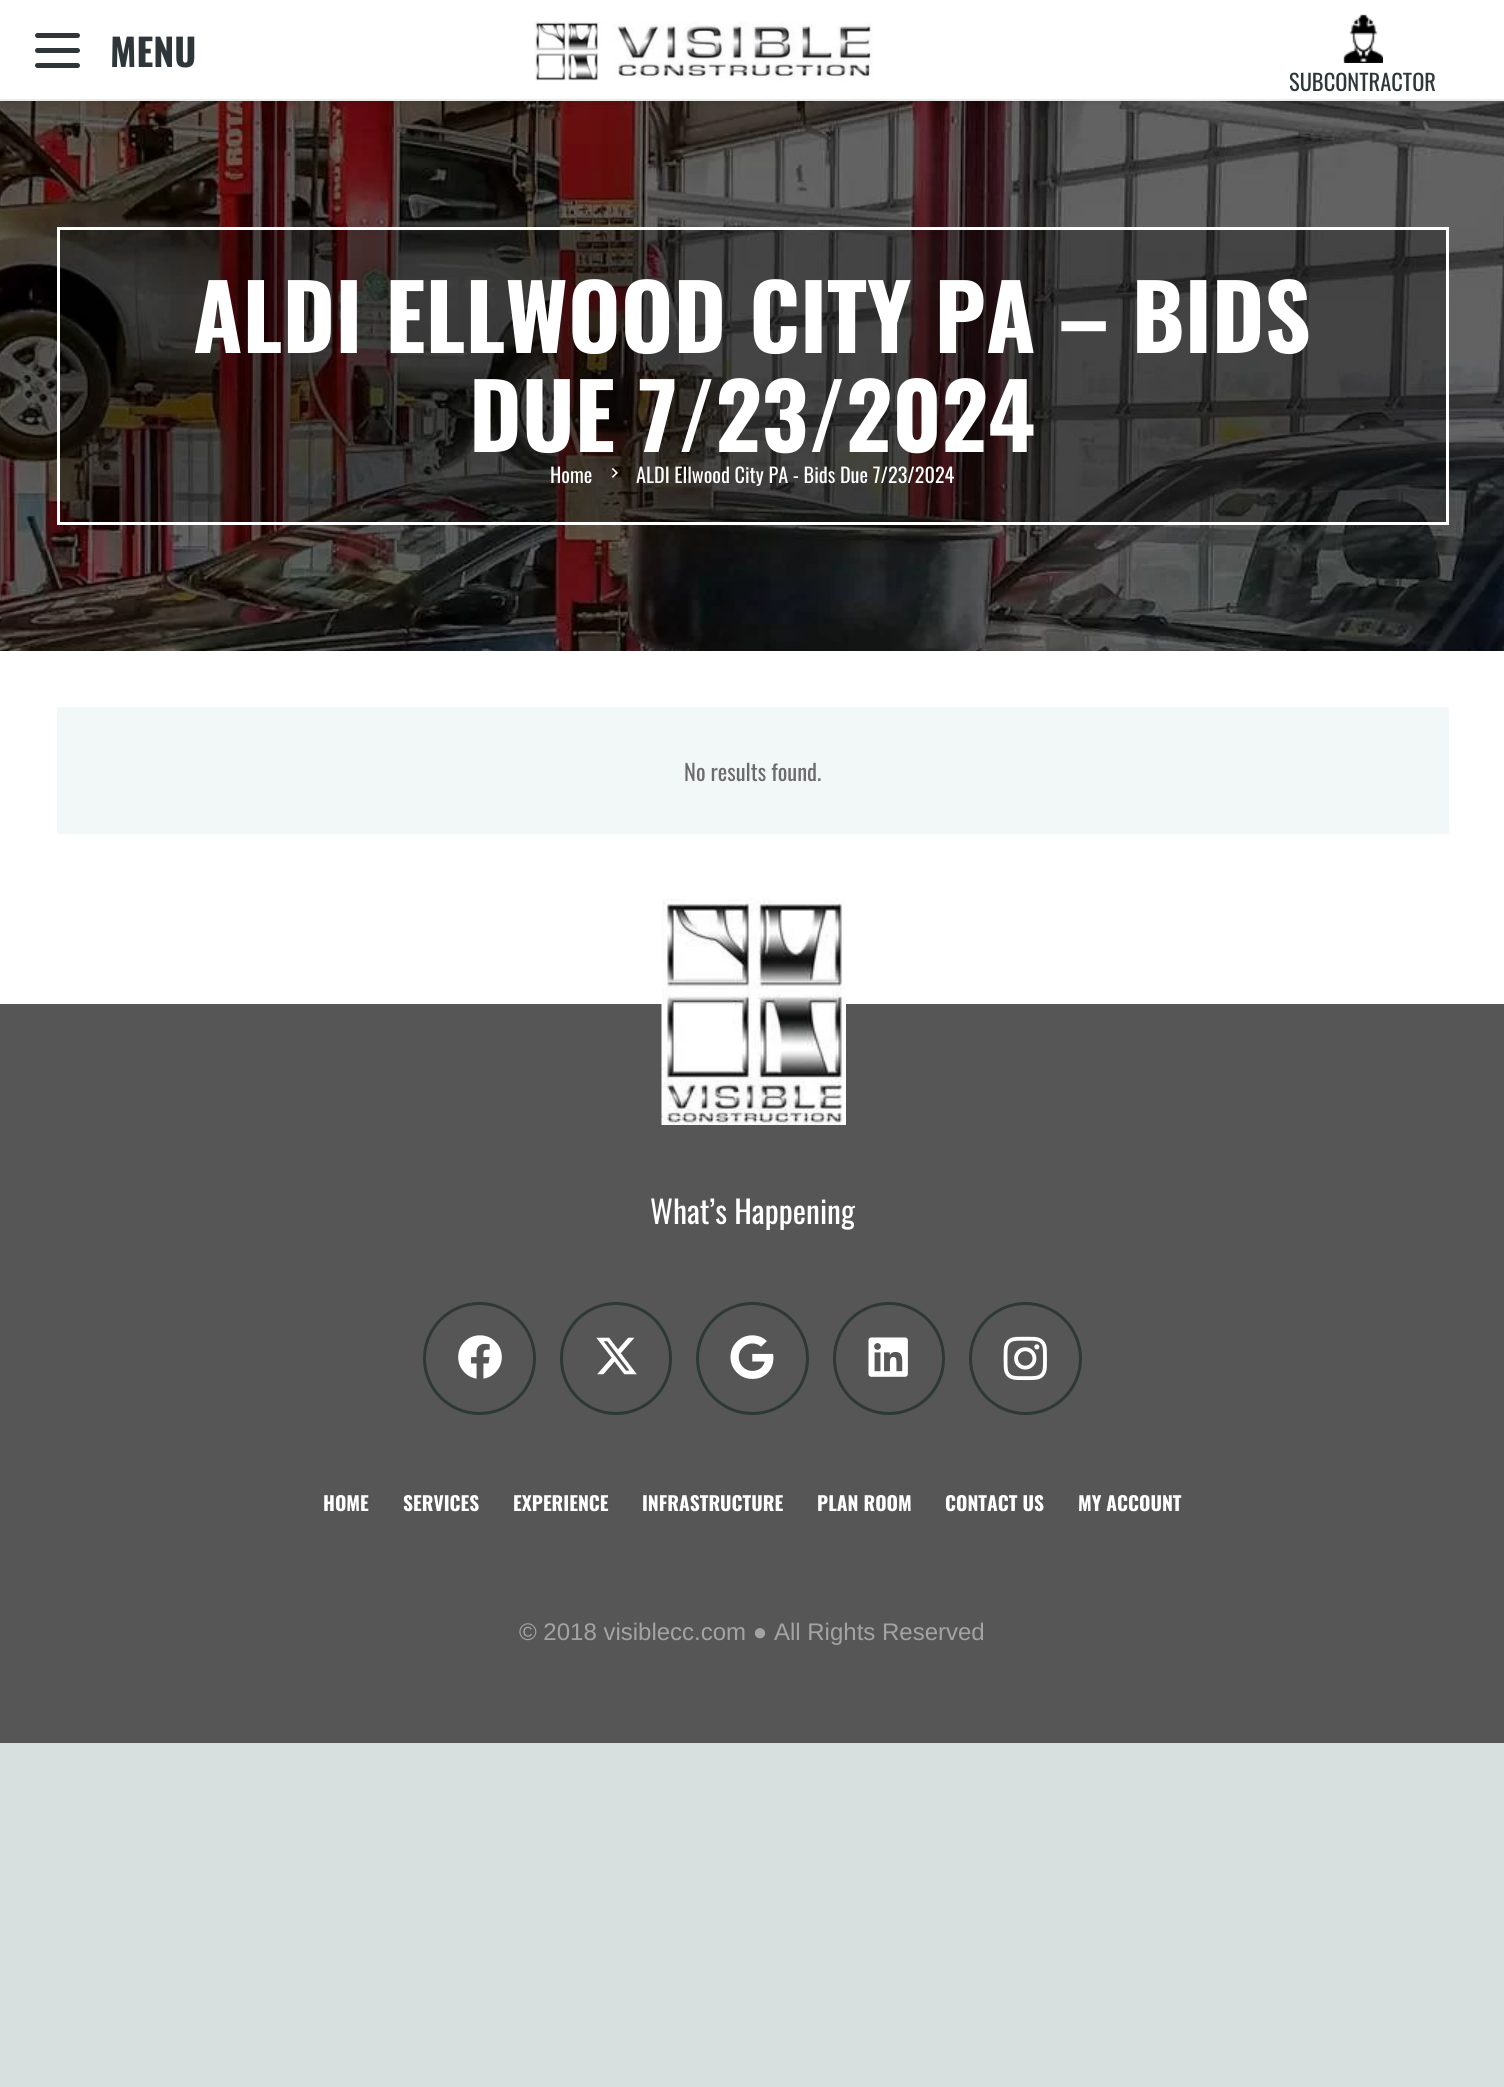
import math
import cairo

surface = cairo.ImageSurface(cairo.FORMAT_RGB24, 1504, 2087)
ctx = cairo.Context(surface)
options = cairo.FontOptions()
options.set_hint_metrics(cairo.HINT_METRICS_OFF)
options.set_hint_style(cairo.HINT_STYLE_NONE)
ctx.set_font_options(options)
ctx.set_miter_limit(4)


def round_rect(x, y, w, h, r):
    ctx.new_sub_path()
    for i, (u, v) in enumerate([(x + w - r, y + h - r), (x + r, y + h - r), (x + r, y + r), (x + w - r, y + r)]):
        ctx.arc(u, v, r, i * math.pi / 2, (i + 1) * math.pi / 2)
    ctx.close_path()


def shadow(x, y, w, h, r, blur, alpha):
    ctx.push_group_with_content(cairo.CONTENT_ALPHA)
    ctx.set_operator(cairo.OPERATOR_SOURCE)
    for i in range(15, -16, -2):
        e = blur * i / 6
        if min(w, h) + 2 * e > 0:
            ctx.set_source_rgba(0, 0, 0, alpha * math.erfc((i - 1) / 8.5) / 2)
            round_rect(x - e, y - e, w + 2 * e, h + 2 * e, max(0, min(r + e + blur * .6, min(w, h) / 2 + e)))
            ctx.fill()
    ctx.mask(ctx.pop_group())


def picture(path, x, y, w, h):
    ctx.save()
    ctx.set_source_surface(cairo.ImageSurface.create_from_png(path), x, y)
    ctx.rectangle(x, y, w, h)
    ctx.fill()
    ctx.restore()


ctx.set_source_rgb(0.843, 0.878, 0.875)
ctx.paint()
ctx.set_source_rgb(1, 1, 1)
ctx.rectangle(0, 651, 1504, 353)
ctx.fill()
picture("img3.png", 0, 101, 1504, 550)
ctx.set_source_rgb(0, 0, 0)
shadow(2, 5, 1501, 97, 0, 1, 0.05)
shadow(2, 6, 1501, 98, 0, 4, 0.1)
ctx.set_source_rgb(1, 1, 1)
ctx.rectangle(0, 0, 1504, 99)
ctx.fill()
ctx.set_source_rgb(0.918, 0.922, 0.922)
ctx.rectangle(0, 99, 1504, 2)
ctx.fill()
ctx.set_source_rgb(0.18, 0.212, 0.227)
round_rect(35, 48, 45, 5, 2.5)
ctx.fill()
round_rect(35, 33, 45, 5, 2.5)
ctx.fill()
round_rect(35, 63, 45, 5, 2.5)
ctx.fill()
ctx.select_font_face("Oswald", cairo.FONT_SLANT_NORMAL, cairo.FONT_WEIGHT_BOLD)
ctx.set_font_size(37.5)
ctx.move_to(110, 67)
ctx.show_text("MENU")
picture("img1.png", 534, 21, 339, 60)
picture("img2.png", 1343, 14, 40, 49)
ctx.select_font_face("Oswald")
ctx.set_font_size(22.5)
ctx.move_to(1289, 91)
ctx.show_text("SUBCONTRACTOR")
ctx.set_source_rgba(0, 0, 0, 0.31)
ctx.rectangle(58.5, 228.5, 1389, 295)
ctx.fill_preserve()
ctx.set_source_rgb(1, 1, 1)
ctx.set_line_width(3)
ctx.stroke()
ctx.select_font_face("Oswald", cairo.FONT_SLANT_NORMAL, cairo.FONT_WEIGHT_BOLD)
ctx.set_font_size(90)
ctx.move_to(193, 353)
ctx.show_text("ALDI ELLWOOD CITY PA – BIDS")
ctx.move_to(469, 452)
ctx.show_text("DUE 7/23/2024")
ctx.select_font_face("Oswald")
ctx.set_font_size(20.25)
ctx.move_to(550, 483)
ctx.show_text("Home")
picture("img4.png", 611, 467, 7, 11)
ctx.move_to(636, 483)
ctx.show_text("ALDI Ellwood City PA - Bids Due 7/23/2024")
ctx.set_source_rgb(0.949, 0.969, 0.969)
ctx.rectangle(57, 707, 1392, 127)
ctx.fill()
ctx.set_font_size(22.5)
ctx.set_source_rgb(0.424, 0.424, 0.424)
ctx.move_to(684, 781)
ctx.show_text("No results found.")
ctx.set_source_rgb(0.337, 0.337, 0.337)
ctx.rectangle(0, 1004, 1504, 739)
ctx.fill()
picture("img5.png", 661, 898, 185, 227)
ctx.set_font_size(31.5)
ctx.set_source_rgb(1, 1, 1)
ctx.move_to(650, 1224)
ctx.show_text("What’s Happening")
ctx.new_path()
ctx.arc(479.5, 1358.5, 55, 0, 2 * math.pi)
ctx.set_source_rgb(0.176, 0.22, 0.216)
ctx.stroke()
picture("img6.png", 458, 1335, 44, 44)
round_rect(561.5, 1303.5, 109, 110, 54.5)
ctx.stroke()
picture("img7.png", 596, 1337, 41, 38)
ctx.arc(752.5, 1358.5, 55, 0, 2 * math.pi)
ctx.stroke()
picture("img8.png", 730, 1335, 44, 44)
round_rect(834.5, 1303.5, 109, 110, 54.5)
ctx.stroke()
picture("img9.png", 868, 1337, 40, 40)
ctx.arc(1025.5, 1358.5, 55, 0, 2 * math.pi)
ctx.stroke()
picture("img10.png", 1003, 1336, 44, 45)
ctx.select_font_face("Oswald", cairo.FONT_SLANT_NORMAL, cairo.FONT_WEIGHT_BOLD)
ctx.set_font_size(19.5)
ctx.set_source_rgb(1, 1, 1)
ctx.move_to(323, 1511)
ctx.show_text("HOME")
ctx.move_to(403, 1511)
ctx.show_text("SERVICES")
ctx.move_to(513, 1511)
ctx.show_text("EXPERIENCE")
ctx.move_to(642, 1511)
ctx.show_text("INFRASTRUCTURE")
ctx.move_to(817, 1511)
ctx.show_text("PLAN ROOM")
ctx.move_to(945, 1511)
ctx.show_text("CONTACT US")
ctx.move_to(1078, 1511)
ctx.show_text("MY ACCOUNT")
ctx.select_font_face("Liberation Sans")
ctx.set_font_size(24)
ctx.set_source_rgb(0.635, 0.639, 0.647)
ctx.move_to(519, 1640)
ctx.show_text("© 2018 visiblecc.com ● All Rights Reserved")
surface.write_to_png("page.png")
